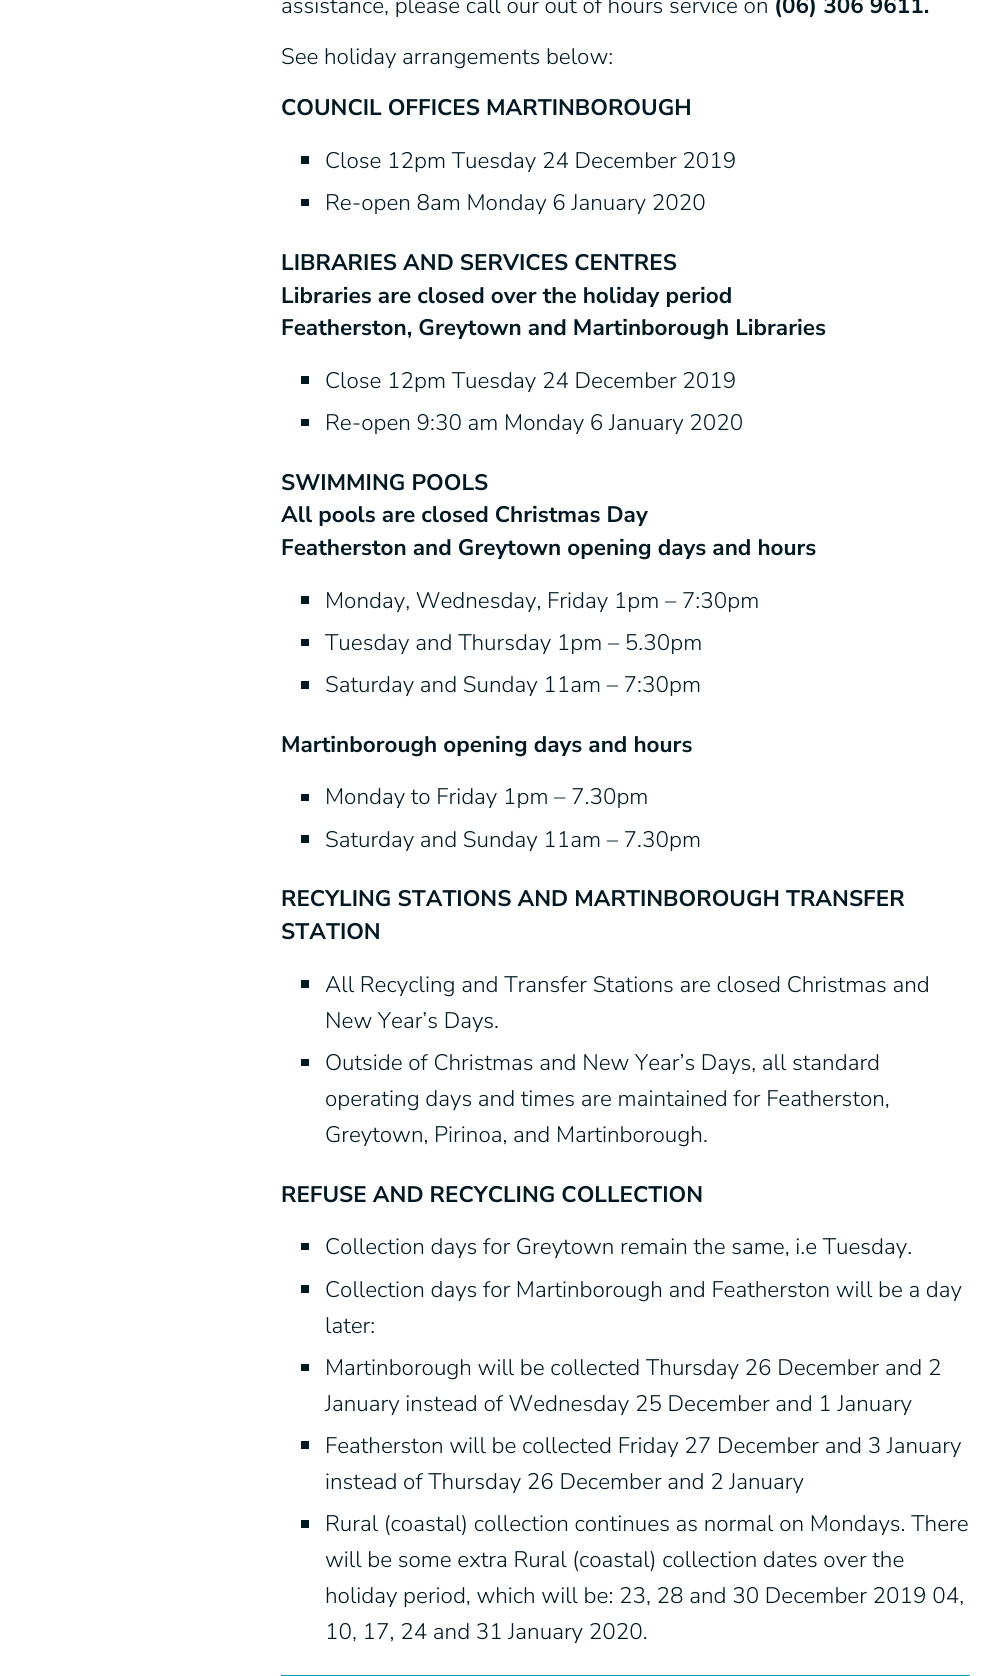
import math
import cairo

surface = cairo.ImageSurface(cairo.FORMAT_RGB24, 1005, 1676)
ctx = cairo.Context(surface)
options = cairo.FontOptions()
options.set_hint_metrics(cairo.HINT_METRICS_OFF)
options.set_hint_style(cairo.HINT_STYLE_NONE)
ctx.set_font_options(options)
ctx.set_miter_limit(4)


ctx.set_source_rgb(1, 1, 1)
ctx.paint()
ctx.set_source_rgb(0.012, 0.588, 0.745)
ctx.rectangle(281, 1675, 689, 1)
ctx.fill()
ctx.select_font_face("Nunito Sans ExtraLight")
ctx.set_font_size(22.5)
ctx.set_source_rgb(0.008, 0.098, 0.137)
ctx.move_to(281, 13)
ctx.show_text("assistance, please call our out of hours service on")
ctx.select_font_face("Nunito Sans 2 ExtraLight")
ctx.move_to(774, 13)
ctx.show_text("(06) 306 9611.")
ctx.select_font_face("Nunito Sans ExtraLight")
ctx.move_to(281, 64)
ctx.show_text("See holiday arrangements below:")
ctx.select_font_face("Nunito Sans 2 ExtraLight")
ctx.move_to(281, 115)
ctx.show_text("COUNCIL OFFICES MARTINBOROUGH")
ctx.rectangle(301, 156, 8, 8)
ctx.fill()
ctx.select_font_face("Nunito Sans ExtraLight")
ctx.move_to(325, 168)
ctx.show_text("Close 12pm Tuesday 24 December 2019")
ctx.rectangle(301, 199, 8, 7)
ctx.fill()
ctx.move_to(325, 210)
ctx.show_text("Re-open 8am Monday 6 January 2020")
ctx.select_font_face("Nunito Sans 2 ExtraLight")
ctx.move_to(281, 270)
ctx.show_text("LIBRARIES AND SERVICES CENTRES")
ctx.move_to(281, 303)
ctx.show_text("Libraries are closed over the holiday period")
ctx.move_to(281, 335)
ctx.show_text("Featherston, Greytown and Martinborough Libraries")
ctx.rectangle(301, 376, 8, 8)
ctx.fill()
ctx.select_font_face("Nunito Sans ExtraLight")
ctx.move_to(325, 388)
ctx.show_text("Close 12pm Tuesday 24 December 2019")
ctx.rectangle(301, 419, 8, 7)
ctx.fill()
ctx.move_to(325, 430)
ctx.show_text("Re-open 9:30 am Monday 6 January 2020")
ctx.select_font_face("Nunito Sans 2 ExtraLight")
ctx.move_to(281, 490)
ctx.show_text("SWIMMING POOLS")
ctx.move_to(281, 522)
ctx.show_text("All pools are closed Christmas Day")
ctx.move_to(281, 555)
ctx.show_text("Featherston and Greytown opening days and hours")
ctx.rectangle(301, 596, 8, 8)
ctx.fill()
ctx.select_font_face("Nunito Sans ExtraLight")
ctx.move_to(325, 608)
ctx.show_text("Monday, Wednesday, Friday 1pm – 7:30pm")
ctx.rectangle(301, 639, 8, 7)
ctx.fill()
ctx.move_to(325, 650)
ctx.show_text("Tuesday and Thursday 1pm – 5.30pm")
ctx.rectangle(301, 681, 8, 8)
ctx.fill()
ctx.move_to(325, 692)
ctx.show_text("Saturday and Sunday 11am – 7:30pm")
ctx.select_font_face("Nunito Sans 2 ExtraLight")
ctx.move_to(281, 752)
ctx.show_text("Martinborough opening days and hours")
ctx.rectangle(301, 794, 8, 7)
ctx.fill()
ctx.select_font_face("Nunito Sans ExtraLight")
ctx.move_to(325, 804)
ctx.show_text("Monday to Friday 1pm – 7.30pm")
ctx.rectangle(301, 835, 8, 8)
ctx.fill()
ctx.move_to(325, 847)
ctx.show_text("Saturday and Sunday 11am – 7.30pm")
ctx.select_font_face("Nunito Sans 2 ExtraLight")
ctx.move_to(281, 906)
ctx.show_text("RECYLING STATIONS AND MARTINBOROUGH TRANSFER")
ctx.move_to(281, 939)
ctx.show_text("STATION")
ctx.rectangle(301, 980, 8, 8)
ctx.fill()
ctx.select_font_face("Nunito Sans ExtraLight")
ctx.move_to(325, 992)
ctx.show_text("All Recycling and Transfer Stations are closed Christmas and")
ctx.move_to(325, 1028)
ctx.show_text("New Year’s Days.")
ctx.rectangle(301, 1059, 8, 7)
ctx.fill()
ctx.move_to(325, 1070)
ctx.show_text("Outside of Christmas and New Year’s Days, all standard")
ctx.move_to(325, 1106)
ctx.show_text("operating days and times are maintained for Featherston,")
ctx.move_to(325, 1142)
ctx.show_text("Greytown, Pirinoa, and Martinborough.")
ctx.select_font_face("Nunito Sans 2 ExtraLight")
ctx.move_to(281, 1202)
ctx.show_text("REFUSE AND RECYCLING COLLECTION")
ctx.rectangle(301, 1243, 8, 7)
ctx.fill()
ctx.select_font_face("Nunito Sans ExtraLight")
ctx.move_to(325, 1254)
ctx.show_text("Collection days for Greytown remain the same, i.e Tuesday.")
ctx.rectangle(301, 1285, 8, 8)
ctx.fill()
ctx.move_to(325, 1297)
ctx.show_text("Collection days for Martinborough and Featherston will be a day")
ctx.move_to(325, 1333)
ctx.show_text("later:")
ctx.rectangle(301, 1364, 8, 7)
ctx.fill()
ctx.move_to(325, 1375)
ctx.show_text("Martinborough will be collected Thursday 26 December and 2")
ctx.move_to(325, 1411)
ctx.show_text("January instead of Wednesday 25 December and 1 January")
ctx.rectangle(301, 1441, 8, 8)
ctx.fill()
ctx.move_to(325, 1453)
ctx.show_text("Featherston will be collected Friday 27 December and 3 January")
ctx.move_to(325, 1489)
ctx.show_text("instead of Thursday 26 December and 2 January")
ctx.rectangle(301, 1520, 8, 8)
ctx.fill()
ctx.move_to(325, 1531)
ctx.show_text("Rural (coastal) collection continues as normal on Mondays. There")
ctx.move_to(325, 1567)
ctx.show_text("will be some extra Rural (coastal) collection dates over the")
ctx.move_to(325, 1603)
ctx.show_text("holiday period, which will be: 23, 28 and 30 December 2019 04,")
ctx.move_to(325, 1639)
ctx.show_text("10, 17, 24 and 31 January 2020.")
surface.write_to_png("page.png")
